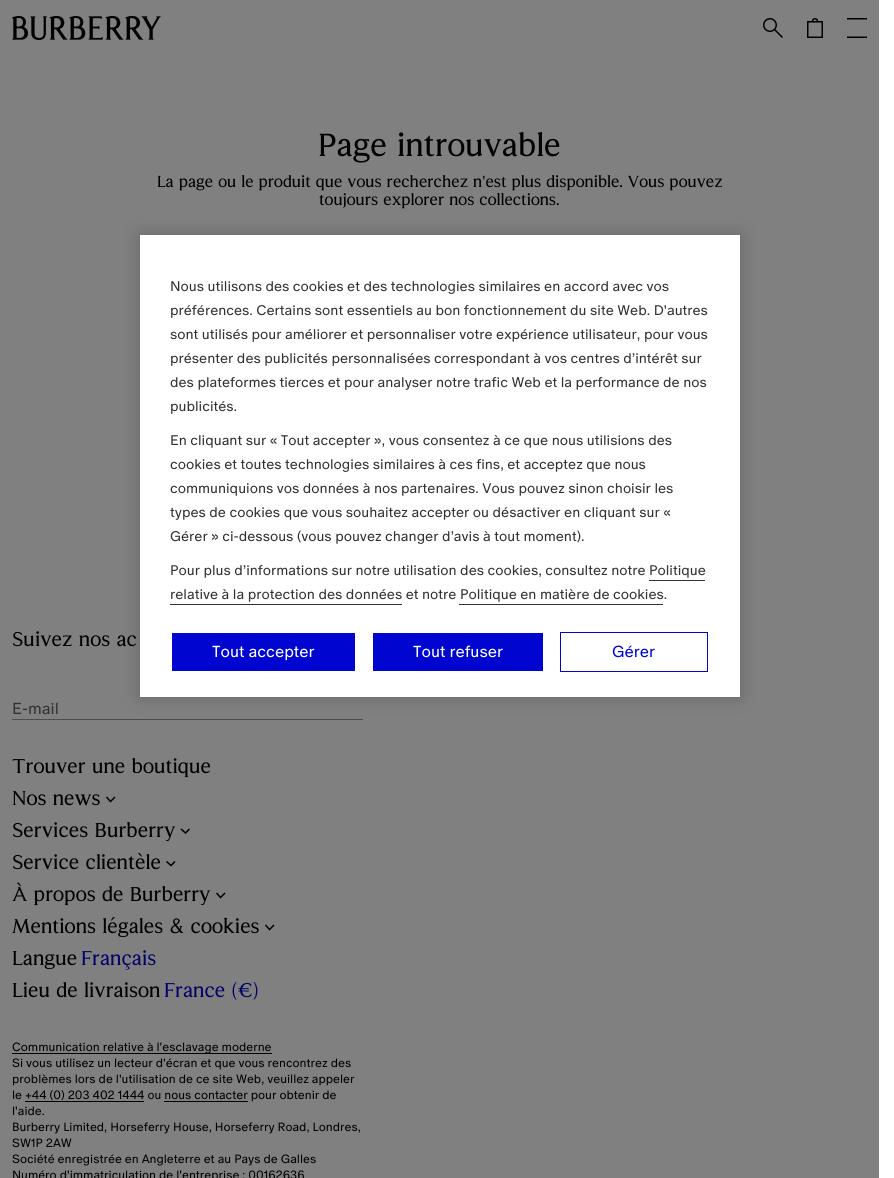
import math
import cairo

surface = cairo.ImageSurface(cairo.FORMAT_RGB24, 894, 1178)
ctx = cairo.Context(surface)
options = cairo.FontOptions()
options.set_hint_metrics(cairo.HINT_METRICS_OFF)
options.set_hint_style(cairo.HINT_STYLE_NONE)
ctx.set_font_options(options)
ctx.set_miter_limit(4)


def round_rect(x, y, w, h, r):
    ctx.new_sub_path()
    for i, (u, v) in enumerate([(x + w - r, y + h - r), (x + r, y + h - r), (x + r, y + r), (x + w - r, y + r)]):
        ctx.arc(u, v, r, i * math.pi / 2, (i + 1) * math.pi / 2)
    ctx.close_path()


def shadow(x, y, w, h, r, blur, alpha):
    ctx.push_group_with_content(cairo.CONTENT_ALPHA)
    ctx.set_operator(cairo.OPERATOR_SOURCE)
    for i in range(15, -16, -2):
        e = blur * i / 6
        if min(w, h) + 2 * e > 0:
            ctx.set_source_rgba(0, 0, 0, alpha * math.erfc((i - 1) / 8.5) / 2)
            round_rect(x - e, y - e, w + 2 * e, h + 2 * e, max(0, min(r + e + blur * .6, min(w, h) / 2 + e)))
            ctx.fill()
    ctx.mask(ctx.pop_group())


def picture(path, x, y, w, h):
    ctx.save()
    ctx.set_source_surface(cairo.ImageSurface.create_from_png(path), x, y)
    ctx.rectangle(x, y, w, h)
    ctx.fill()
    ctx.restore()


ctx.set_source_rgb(1, 1, 1)
ctx.paint()
ctx.set_source_rgb(0.502, 0.502, 0.502)
ctx.rectangle(0, 0, 879, 1178)
ctx.fill()
picture("img1.png", 12, 16, 149, 24)
picture("img2.png", 763, 18, 20, 20)
picture("img3.png", 807, 18, 16, 20)
picture("img4.png", 847, 18, 20, 20)
ctx.select_font_face("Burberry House")
ctx.set_font_size(32)
ctx.set_source_rgb(0, 0, 0)
ctx.move_to(318, 156)
ctx.show_text("Page introuvable")
ctx.set_font_size(16)
ctx.move_to(157, 187)
ctx.show_text("La page ou le produit que vous recherchez n'est plus disponible. Vous pouvez")
ctx.move_to(319, 205)
ctx.show_text("toujours explorer nos collections.")
ctx.set_font_size(20)
ctx.move_to(12, 646)
ctx.show_text("Suivez nos ac")
ctx.select_font_face("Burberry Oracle")
ctx.set_font_size(16)
ctx.set_source_rgb(0.2, 0.2, 0.2)
ctx.move_to(12, 714)
ctx.show_text("E-mail")
ctx.set_source_rgb(0.302, 0.302, 0.302)
ctx.rectangle(12, 719, 351, 1)
ctx.fill()
ctx.select_font_face("Burberry House")
ctx.set_font_size(20)
ctx.set_source_rgb(0, 0, 0)
ctx.move_to(12, 773)
ctx.show_text("Trouver une boutique")
ctx.move_to(12, 805)
ctx.show_text("Nos news")
ctx.new_path()
ctx.move_to(106.5, 797)
ctx.line_to(110.5, 801.5)
ctx.line_to(115, 797)
ctx.set_line_width(1.5)
ctx.stroke()
ctx.move_to(12, 837)
ctx.show_text("Services Burberry")
ctx.new_path()
ctx.move_to(181, 829)
ctx.line_to(185.5, 833)
ctx.line_to(189.5, 829)
ctx.move_to(166.5, 861.5)
ctx.line_to(171, 865.5)
ctx.line_to(175, 861.5)
ctx.stroke()
ctx.move_to(12, 869)
ctx.show_text("Service clientèle")
ctx.move_to(12, 901)
ctx.show_text("À propos de Burberry")
ctx.new_path()
ctx.move_to(216.5, 893)
ctx.line_to(220.5, 897.5)
ctx.line_to(225, 893)
ctx.move_to(265.5, 925)
ctx.line_to(269.5, 929.5)
ctx.line_to(274, 925)
ctx.stroke()
ctx.move_to(12, 933)
ctx.show_text("Mentions légales & cookies")
ctx.move_to(12, 965)
ctx.show_text("Langue")
ctx.set_source_rgb(0, 0.012, 0.408)
ctx.move_to(81, 965)
ctx.show_text("Français")
ctx.set_source_rgb(0, 0, 0)
ctx.move_to(12, 997)
ctx.show_text("Lieu de livraison")
ctx.set_source_rgb(0, 0.012, 0.408)
ctx.move_to(164, 997)
ctx.show_text("France (€)")
ctx.set_source_rgb(0, 0, 0)
ctx.rectangle(12, 1053, 260, 1)
ctx.fill()
ctx.select_font_face("Burberry Oracle")
ctx.set_font_size(12)
ctx.move_to(12, 1051)
ctx.show_text("Communication relative à l'esclavage moderne")
ctx.move_to(12, 1067)
ctx.show_text("Si vous utilisez un lecteur d'écran et que vous rencontrez des")
ctx.move_to(12, 1083)
ctx.show_text("problèmes lors de l'utilisation de ce site Web, veuillez appeler")
ctx.move_to(12, 1099)
ctx.show_text("le +44 (0) 203 402 1444 ou nous contacter pour obtenir de")
ctx.rectangle(25, 1101, 119, 1)
ctx.fill()
ctx.rectangle(164, 1101, 84, 1)
ctx.fill()
ctx.move_to(12, 1115)
ctx.show_text("l'aide.")
ctx.move_to(12, 1131)
ctx.show_text("Burberry Limited, Horseferry House, Horseferry Road, Londres,")
ctx.move_to(12, 1147)
ctx.show_text("SW1P 2AW")
ctx.move_to(12, 1163)
ctx.show_text("Société enregistrée en Angleterre et au Pays de Galles")
ctx.move_to(12, 1179)
ctx.show_text("Numéro d'immatriculation de l'entreprise : 00162636")
ctx.set_source_rgb(0, 0, 0)
shadow(140, 235, 600, 462, 0, 9, 0.2)
ctx.set_source_rgb(1, 1, 1)
ctx.rectangle(140, 235, 600, 462)
ctx.fill()
ctx.set_font_size(14)
ctx.set_source_rgb(0.2, 0.2, 0.2)
ctx.move_to(170, 291)
ctx.show_text("Nous utilisons des cookies et des technologies similaires en accord avec vos")
ctx.move_to(170, 315)
ctx.show_text("préférences. Certains sont essentiels au bon fonctionnement du site Web. D'autres")
ctx.move_to(170, 339)
ctx.show_text("sont utilisés pour améliorer et personnaliser votre expérience utilisateur, pour vous")
ctx.move_to(170, 363)
ctx.show_text("présenter des publicités personnalisées correspondant à vos centres d’intérêt sur")
ctx.move_to(170, 387)
ctx.show_text("des plateformes tierces et pour analyser notre trafic Web et la performance de nos")
ctx.move_to(170, 411)
ctx.show_text("publicités.")
ctx.move_to(170, 445)
ctx.show_text("En cliquant sur « Tout accepter », vous consentez à ce que nous utilisions des")
ctx.move_to(170, 469)
ctx.show_text("cookies et toutes technologies similaires à ces fins, et acceptez que nous")
ctx.move_to(170, 493)
ctx.show_text("communiquions vos données à nos partenaires. Vous pouvez sinon choisir les")
ctx.move_to(170, 517)
ctx.show_text("types de cookies que vous souhaitez accepter ou désactiver en cliquant sur «")
ctx.move_to(170, 541)
ctx.show_text("Gérer » ci-dessous (vous pouvez changer d’avis à tout moment).")
ctx.move_to(170, 575)
ctx.show_text("Pour plus d’informations sur notre utilisation des cookies, consultez notre Politique")
ctx.move_to(170, 599)
ctx.show_text("relative à la protection des données et notre Politique en matière de cookies.")
ctx.rectangle(649, 580, 56, 1)
ctx.fill()
ctx.rectangle(170, 604, 232, 1)
ctx.fill()
ctx.rectangle(459, 604, 204, 1)
ctx.fill()
ctx.set_source_rgb(0, 0.024, 0.812)
ctx.rectangle(172, 633, 183, 38)
ctx.fill()
ctx.set_font_size(16)
ctx.set_source_rgb(1, 1, 1)
ctx.move_to(212, 657)
ctx.show_text("Tout accepter")
ctx.set_source_rgb(0, 0.024, 0.812)
ctx.rectangle(373, 633, 170, 38)
ctx.fill()
ctx.set_source_rgb(1, 1, 1)
ctx.move_to(413, 657)
ctx.show_text("Tout refuser")
ctx.rectangle(560.5, 632.5, 147, 39)
ctx.set_source_rgb(0, 0.024, 0.812)
ctx.set_line_width(1)
ctx.stroke()
ctx.move_to(612, 657)
ctx.show_text("Gérer")
surface.write_to_png("page.png")
